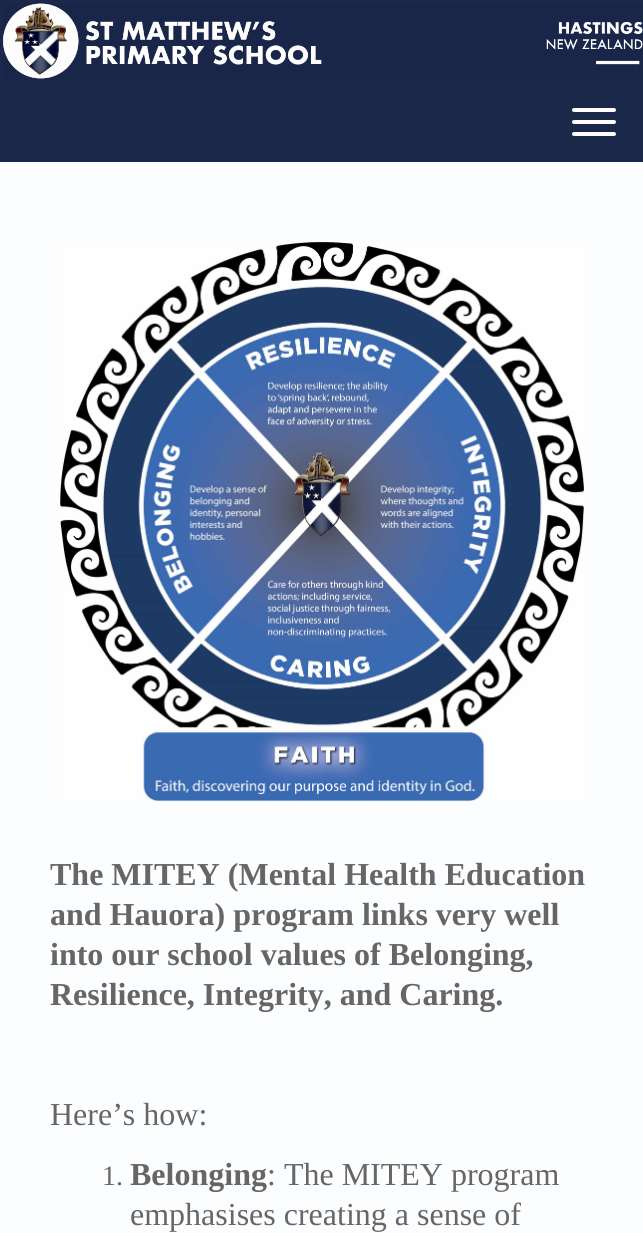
import math
import cairo

surface = cairo.ImageSurface(cairo.FORMAT_RGB24, 643, 1233)
ctx = cairo.Context(surface)
options = cairo.FontOptions()
options.set_hint_metrics(cairo.HINT_METRICS_OFF)
options.set_hint_style(cairo.HINT_STYLE_NONE)
ctx.set_font_options(options)
ctx.set_miter_limit(4)


def round_rect(x, y, w, h, r):
    ctx.new_sub_path()
    for i, (u, v) in enumerate([(x + w - r, y + h - r), (x + r, y + h - r), (x + r, y + r), (x + w - r, y + r)]):
        ctx.arc(u, v, r, i * math.pi / 2, (i + 1) * math.pi / 2)
    ctx.close_path()


def picture(path, x, y, w, h):
    ctx.save()
    ctx.set_source_surface(cairo.ImageSurface.create_from_png(path), x, y)
    ctx.rectangle(x, y, w, h)
    ctx.fill()
    ctx.restore()


ctx.set_source_rgb(0.106, 0.157, 0.29)
ctx.paint()
picture("img1.png", 3, 3, 640, 76)
ctx.set_source_rgb(1, 1, 1)
round_rect(572, 108, 44, 4, 2)
ctx.fill()
round_rect(572, 120, 44, 4, 2)
ctx.fill()
round_rect(572, 132, 44, 4, 2)
ctx.fill()
ctx.set_source_rgb(0.988, 0.992, 1)
ctx.rectangle(0, 162, 643, 1071)
ctx.fill()
picture("img2.png", 60, 242, 524, 560)
ctx.select_font_face("Liberation Serif", cairo.FONT_SLANT_NORMAL, cairo.FONT_WEIGHT_BOLD)
ctx.set_font_size(32)
ctx.set_source_rgb(0.4, 0.4, 0.4)
ctx.move_to(50, 885)
ctx.show_text("The MITEY (Mental Health Education")
ctx.move_to(50, 925)
ctx.show_text("and Hauora) program links very well")
ctx.move_to(50, 965)
ctx.show_text("into our school values of Belonging,")
ctx.move_to(50, 1005)
ctx.show_text("Resilience, Integrity, and Caring.")
ctx.select_font_face("Liberation Serif")
ctx.move_to(50, 1125)
ctx.show_text("Here’s how:")
ctx.set_font_size(28)
ctx.move_to(102, 1185)
ctx.show_text("1.")
ctx.select_font_face("Liberation Serif", cairo.FONT_SLANT_NORMAL, cairo.FONT_WEIGHT_BOLD)
ctx.set_font_size(32)
ctx.move_to(130, 1185)
ctx.show_text("Belonging")
ctx.select_font_face("Liberation Serif")
ctx.move_to(267, 1185)
ctx.show_text(": The MITEY program")
ctx.move_to(130, 1225)
ctx.show_text("emphasises creating a sense of")
surface.write_to_png("page.png")
